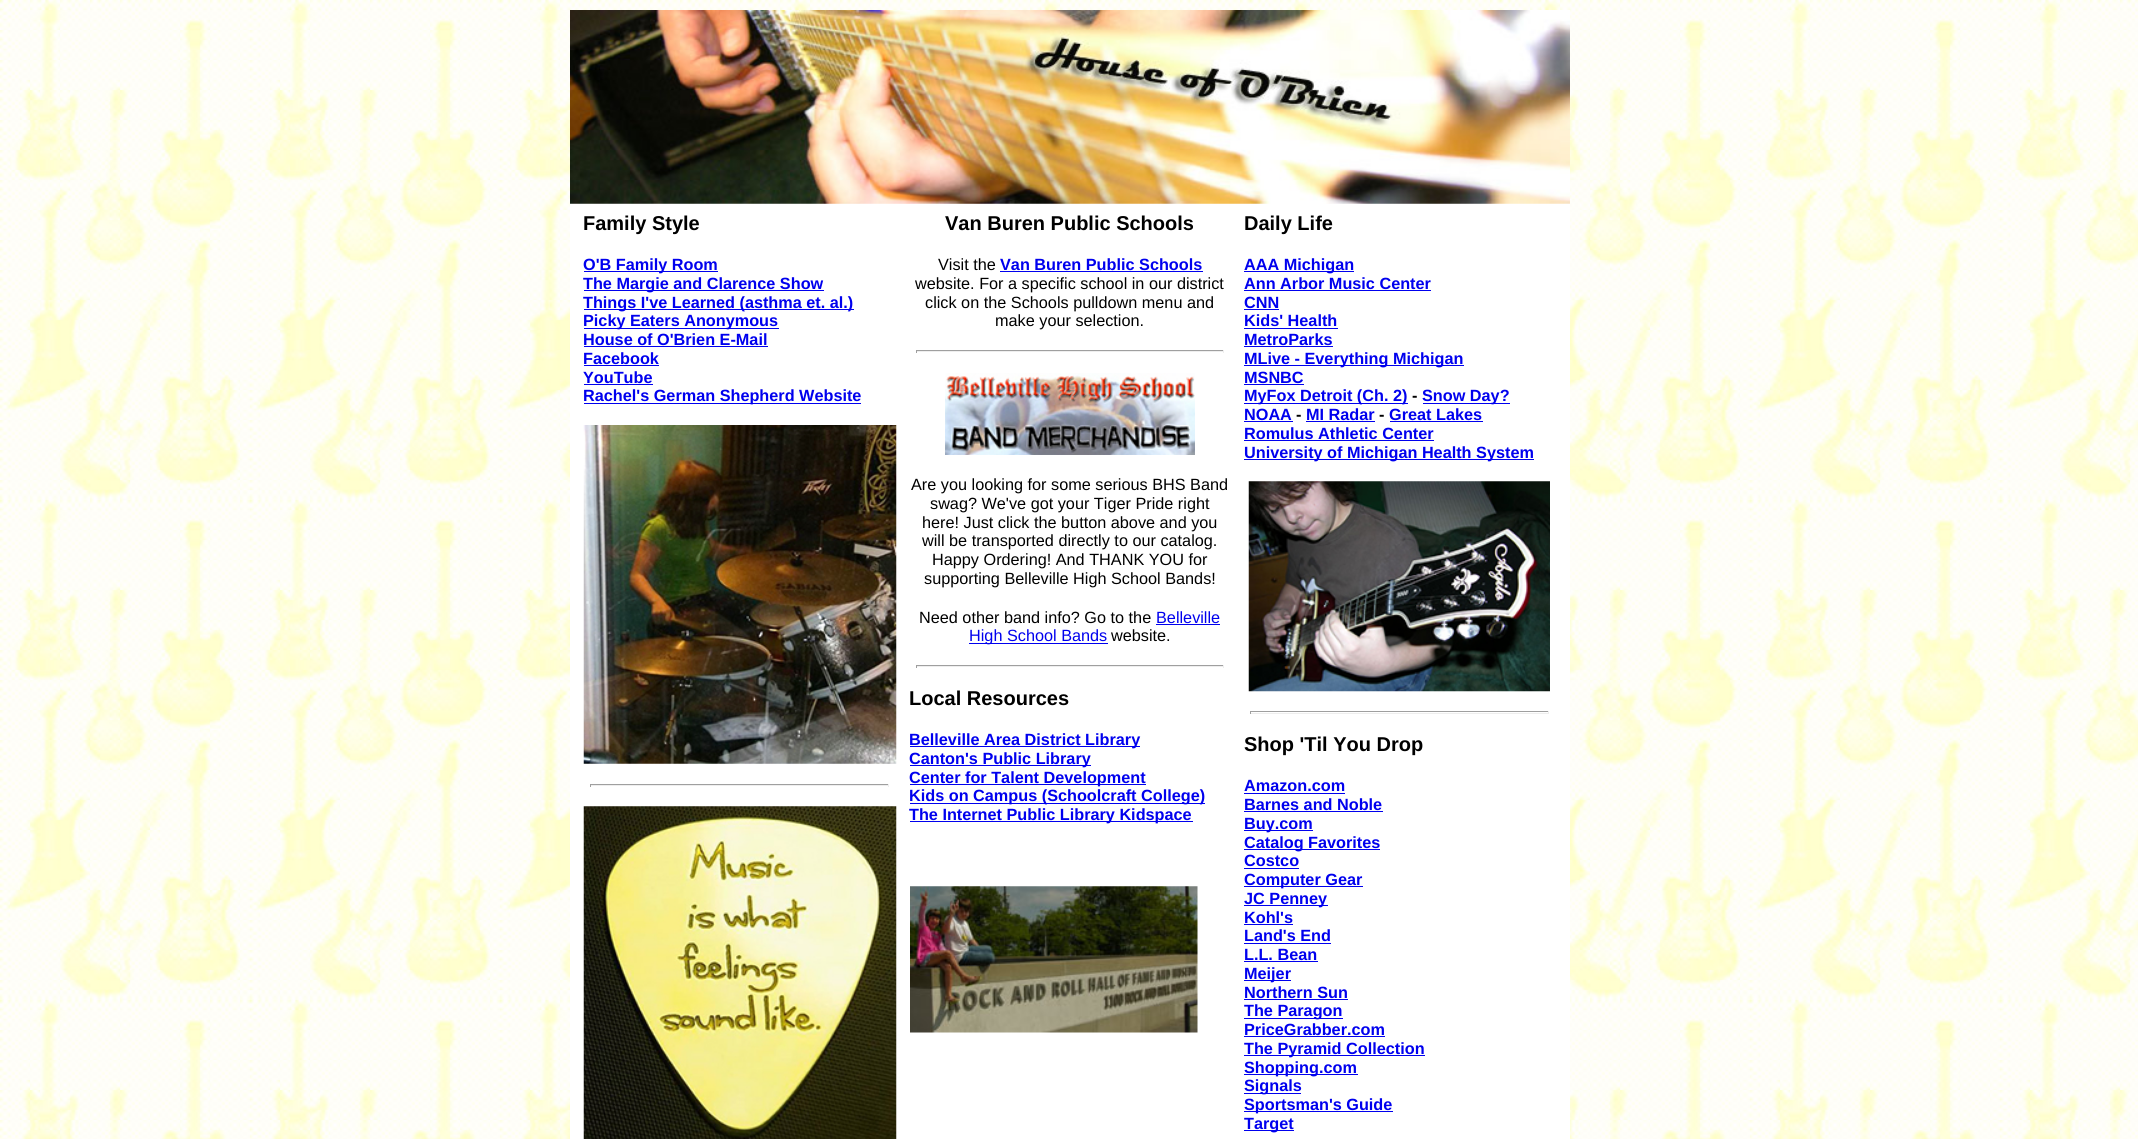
import math
import cairo

surface = cairo.ImageSurface(cairo.FORMAT_RGB24, 2138, 1139)
ctx = cairo.Context(surface)
options = cairo.FontOptions()
options.set_hint_metrics(cairo.HINT_METRICS_OFF)
options.set_hint_style(cairo.HINT_STYLE_NONE)
ctx.set_font_options(options)
ctx.set_miter_limit(4)


def picture(path, x, y, w, h):
    ctx.save()
    ctx.set_source_surface(cairo.ImageSurface.create_from_png(path), x, y)
    ctx.rectangle(x, y, w, h)
    ctx.fill()
    ctx.restore()


ctx.set_source_rgb(1, 1, 1)
ctx.paint()
picture("img1.png", 0, 0, 2138, 1139)
ctx.set_source_rgb(1, 1, 1)
ctx.rectangle(570, 203, 1000, 936)
ctx.fill()
picture("img2.png", 570, 10, 1000, 194)
ctx.select_font_face("Liberation Sans", cairo.FONT_SLANT_NORMAL, cairo.FONT_WEIGHT_BOLD)
ctx.set_font_size(20)
ctx.set_source_rgb(0, 0, 0)
ctx.move_to(583, 230)
ctx.show_text("Family Style")
ctx.set_source_rgb(0, 0, 0.933)
ctx.rectangle(584, 271, 134, 1)
ctx.fill()
ctx.set_font_size(16.25)
ctx.move_to(583, 270)
ctx.show_text("O'B Family Room")
ctx.rectangle(584, 290, 240, 1)
ctx.fill()
ctx.move_to(583, 289)
ctx.show_text("The Margie and Clarence Show")
ctx.rectangle(584, 309, 270, 1)
ctx.fill()
ctx.move_to(583, 308)
ctx.show_text("Things I've Learned (asthma et. al.)")
ctx.rectangle(584, 328, 195, 1)
ctx.fill()
ctx.move_to(583, 326)
ctx.show_text("Picky Eaters Anonymous")
ctx.move_to(583, 345)
ctx.show_text("House of O'Brien E-Mail")
ctx.rectangle(584, 346, 184, 1)
ctx.fill()
ctx.move_to(583, 364)
ctx.show_text("Facebook")
ctx.rectangle(584, 365, 75, 1)
ctx.fill()
ctx.move_to(583, 383)
ctx.show_text("YouTube")
ctx.rectangle(584, 384, 69, 1)
ctx.fill()
ctx.rectangle(584, 403, 277, 1)
ctx.fill()
ctx.move_to(583, 401)
ctx.show_text("Rachel's German Shepherd Website")
picture("img3.png", 583, 425, 314, 339)
ctx.set_source_rgb(0.624, 0.624, 0.624)
ctx.rectangle(590, 784, 299, 1)
ctx.fill()
ctx.set_source_rgb(0.933, 0.933, 0.933)
ctx.rectangle(888, 784, 1, 3)
ctx.fill()
ctx.rectangle(590, 785, 299, 1)
ctx.fill()
ctx.set_source_rgb(0.624, 0.624, 0.624)
ctx.rectangle(590, 784, 1, 3)
ctx.fill()
picture("img4.png", 583, 806, 314, 333)
ctx.set_font_size(20)
ctx.set_source_rgb(0, 0, 0)
ctx.move_to(945, 230)
ctx.show_text("Van Buren Public Schools")
ctx.select_font_face("Liberation Sans")
ctx.set_font_size(16.25)
ctx.move_to(938, 270)
ctx.show_text("Visit the")
ctx.select_font_face("Liberation Sans", cairo.FONT_SLANT_NORMAL, cairo.FONT_WEIGHT_BOLD)
ctx.set_source_rgb(0, 0, 0.933)
ctx.move_to(1000, 270)
ctx.show_text("Van Buren Public Schools")
ctx.rectangle(1000, 271, 203, 1)
ctx.fill()
ctx.select_font_face("Liberation Sans")
ctx.set_source_rgb(0, 0, 0)
ctx.move_to(915, 289)
ctx.show_text("website. For a specific school in our district")
ctx.move_to(925, 308)
ctx.show_text("click on the Schools pulldown menu and")
ctx.move_to(995, 326)
ctx.show_text("make your selection.")
ctx.set_source_rgb(0.624, 0.624, 0.624)
ctx.rectangle(916, 350, 308, 1)
ctx.fill()
ctx.set_source_rgb(0.933, 0.933, 0.933)
ctx.rectangle(1223, 350, 1, 3)
ctx.fill()
ctx.rectangle(916, 351, 308, 1)
ctx.fill()
ctx.set_source_rgb(0.624, 0.624, 0.624)
ctx.rectangle(916, 350, 1, 3)
ctx.fill()
picture("img5.png", 945, 373, 250, 82)
ctx.set_source_rgb(0, 0, 0)
ctx.move_to(911, 490)
ctx.show_text("Are you looking for some serious BHS Band")
ctx.move_to(930, 509)
ctx.show_text("swag? We've got your Tiger Pride right")
ctx.move_to(922, 528)
ctx.show_text("here! Just click the button above and you")
ctx.move_to(922, 546)
ctx.show_text("will be transported directly to our catalog.")
ctx.move_to(932, 565)
ctx.show_text("Happy Ordering! And THANK YOU for")
ctx.move_to(924, 584)
ctx.show_text("supporting Belleville High School Bands!")
ctx.move_to(919, 623)
ctx.show_text("Need other band info? Go to the")
ctx.set_source_rgb(0, 0, 0.933)
ctx.move_to(1156, 623)
ctx.show_text("Belleville")
ctx.rectangle(1156, 624, 64, 1)
ctx.fill()
ctx.rectangle(969, 643, 139, 1)
ctx.fill()
ctx.move_to(969, 641)
ctx.show_text("High School Bands")
ctx.set_source_rgb(0, 0, 0)
ctx.move_to(1111, 641)
ctx.show_text("website.")
ctx.set_source_rgb(0.624, 0.624, 0.624)
ctx.rectangle(916, 665, 308, 1)
ctx.fill()
ctx.set_source_rgb(0.933, 0.933, 0.933)
ctx.rectangle(1223, 665, 1, 3)
ctx.fill()
ctx.rectangle(916, 666, 308, 1)
ctx.fill()
ctx.set_source_rgb(0.624, 0.624, 0.624)
ctx.rectangle(916, 665, 1, 3)
ctx.fill()
ctx.select_font_face("Liberation Sans", cairo.FONT_SLANT_NORMAL, cairo.FONT_WEIGHT_BOLD)
ctx.set_font_size(20)
ctx.set_source_rgb(0, 0, 0)
ctx.move_to(909, 705)
ctx.show_text("Local Resources")
ctx.set_source_rgb(0, 0, 0.933)
ctx.rectangle(910, 746, 230, 1)
ctx.fill()
ctx.set_font_size(16.25)
ctx.move_to(909, 745)
ctx.show_text("Belleville Area District Library")
ctx.rectangle(910, 765, 181, 1)
ctx.fill()
ctx.move_to(909, 764)
ctx.show_text("Canton's Public Library")
ctx.rectangle(910, 784, 236, 1)
ctx.fill()
ctx.move_to(909, 783)
ctx.show_text("Center for Talent Development")
ctx.rectangle(910, 803, 295, 1)
ctx.fill()
ctx.move_to(909, 801)
ctx.show_text("Kids on Campus (Schoolcraft College)")
ctx.rectangle(910, 821, 283, 1)
ctx.fill()
ctx.move_to(909, 820)
ctx.show_text("The Internet Public Library Kidspace")
picture("img6.png", 910, 886, 288, 147)
ctx.set_font_size(20)
ctx.set_source_rgb(0, 0, 0)
ctx.move_to(1244, 230)
ctx.show_text("Daily Life")
ctx.set_source_rgb(0, 0, 0.933)
ctx.rectangle(1244, 271, 110, 1)
ctx.fill()
ctx.set_font_size(16.25)
ctx.move_to(1244, 270)
ctx.show_text("AAA Michigan")
ctx.move_to(1244, 289)
ctx.show_text("Ann Arbor Music Center")
ctx.rectangle(1244, 290, 187, 1)
ctx.fill()
ctx.move_to(1244, 308)
ctx.show_text("CNN")
ctx.rectangle(1244, 309, 35, 1)
ctx.fill()
ctx.move_to(1244, 326)
ctx.show_text("Kids' Health")
ctx.rectangle(1244, 328, 94, 1)
ctx.fill()
ctx.move_to(1244, 345)
ctx.show_text("MetroParks")
ctx.rectangle(1244, 346, 89, 1)
ctx.fill()
ctx.rectangle(1244, 365, 220, 1)
ctx.fill()
ctx.move_to(1244, 364)
ctx.show_text("MLive - Everything Michigan")
ctx.move_to(1244, 383)
ctx.show_text("MSNBC")
ctx.rectangle(1244, 384, 60, 1)
ctx.fill()
ctx.rectangle(1244, 403, 164, 1)
ctx.fill()
ctx.move_to(1244, 401)
ctx.show_text("MyFox Detroit (Ch. 2)")
ctx.set_source_rgb(0, 0, 0)
ctx.move_to(1412, 401)
ctx.show_text("-")
ctx.set_source_rgb(0, 0, 0.933)
ctx.rectangle(1423, 403, 87, 1)
ctx.fill()
ctx.move_to(1422, 401)
ctx.show_text("Snow Day?")
ctx.move_to(1244, 420)
ctx.show_text("NOAA")
ctx.rectangle(1244, 421, 49, 1)
ctx.fill()
ctx.set_source_rgb(0, 0, 0)
ctx.move_to(1296, 420)
ctx.show_text("-")
ctx.set_source_rgb(0, 0, 0.933)
ctx.move_to(1306, 420)
ctx.show_text("MI Radar")
ctx.rectangle(1306, 421, 69, 1)
ctx.fill()
ctx.set_source_rgb(0, 0, 0)
ctx.move_to(1379, 420)
ctx.show_text("-")
ctx.set_source_rgb(0, 0, 0.933)
ctx.move_to(1389, 420)
ctx.show_text("Great Lakes")
ctx.rectangle(1390, 421, 93, 1)
ctx.fill()
ctx.move_to(1244, 439)
ctx.show_text("Romulus Athletic Center")
ctx.rectangle(1244, 440, 190, 1)
ctx.fill()
ctx.rectangle(1244, 459, 290, 1)
ctx.fill()
ctx.move_to(1244, 458)
ctx.show_text("University of Michigan Health System")
picture("img7.png", 1248, 481, 302, 211)
ctx.set_source_rgb(0.624, 0.624, 0.624)
ctx.rectangle(1250, 711, 299, 1)
ctx.fill()
ctx.set_source_rgb(0.933, 0.933, 0.933)
ctx.rectangle(1548, 711, 1, 3)
ctx.fill()
ctx.rectangle(1250, 713, 299, 1)
ctx.fill()
ctx.set_source_rgb(0.624, 0.624, 0.624)
ctx.rectangle(1250, 711, 1, 3)
ctx.fill()
ctx.set_font_size(20)
ctx.set_source_rgb(0, 0, 0)
ctx.move_to(1244, 751)
ctx.show_text("Shop 'Til You Drop")
ctx.set_font_size(16.25)
ctx.set_source_rgb(0, 0, 0.933)
ctx.move_to(1244, 791)
ctx.show_text("Amazon.com")
ctx.rectangle(1244, 793, 101, 1)
ctx.fill()
ctx.move_to(1244, 810)
ctx.show_text("Barnes and Noble")
ctx.rectangle(1244, 811, 139, 1)
ctx.fill()
ctx.rectangle(1244, 830, 69, 1)
ctx.fill()
ctx.move_to(1244, 829)
ctx.show_text("Buy.com")
ctx.rectangle(1244, 849, 136, 1)
ctx.fill()
ctx.move_to(1244, 848)
ctx.show_text("Catalog Favorites")
ctx.move_to(1244, 866)
ctx.show_text("Costco")
ctx.rectangle(1244, 868, 55, 1)
ctx.fill()
ctx.rectangle(1244, 886, 119, 1)
ctx.fill()
ctx.move_to(1244, 885)
ctx.show_text("Computer Gear")
ctx.rectangle(1244, 905, 84, 1)
ctx.fill()
ctx.move_to(1244, 904)
ctx.show_text("JC Penney")
ctx.move_to(1244, 923)
ctx.show_text("Kohl's")
ctx.rectangle(1244, 924, 49, 1)
ctx.fill()
ctx.move_to(1244, 941)
ctx.show_text("Land's End")
ctx.rectangle(1244, 943, 87, 1)
ctx.fill()
ctx.move_to(1244, 960)
ctx.show_text("L.L. Bean")
ctx.rectangle(1244, 961, 74, 1)
ctx.fill()
ctx.rectangle(1244, 980, 47, 1)
ctx.fill()
ctx.move_to(1244, 979)
ctx.show_text("Meijer")
ctx.move_to(1244, 998)
ctx.show_text("Northern Sun")
ctx.rectangle(1244, 999, 104, 1)
ctx.fill()
ctx.rectangle(1244, 1018, 99, 1)
ctx.fill()
ctx.move_to(1244, 1016)
ctx.show_text("The Paragon")
ctx.move_to(1244, 1035)
ctx.show_text("PriceGrabber.com")
ctx.rectangle(1244, 1036, 141, 1)
ctx.fill()
ctx.rectangle(1244, 1055, 181, 1)
ctx.fill()
ctx.move_to(1244, 1054)
ctx.show_text("The Pyramid Collection")
ctx.rectangle(1244, 1074, 114, 1)
ctx.fill()
ctx.move_to(1244, 1073)
ctx.show_text("Shopping.com")
ctx.rectangle(1244, 1093, 57, 1)
ctx.fill()
ctx.move_to(1244, 1091)
ctx.show_text("Signals")
ctx.rectangle(1244, 1111, 149, 1)
ctx.fill()
ctx.move_to(1244, 1110)
ctx.show_text("Sportsman's Guide")
ctx.rectangle(1244, 1130, 50, 1)
ctx.fill()
ctx.move_to(1244, 1129)
ctx.show_text("Target")
surface.write_to_png("page.png")
